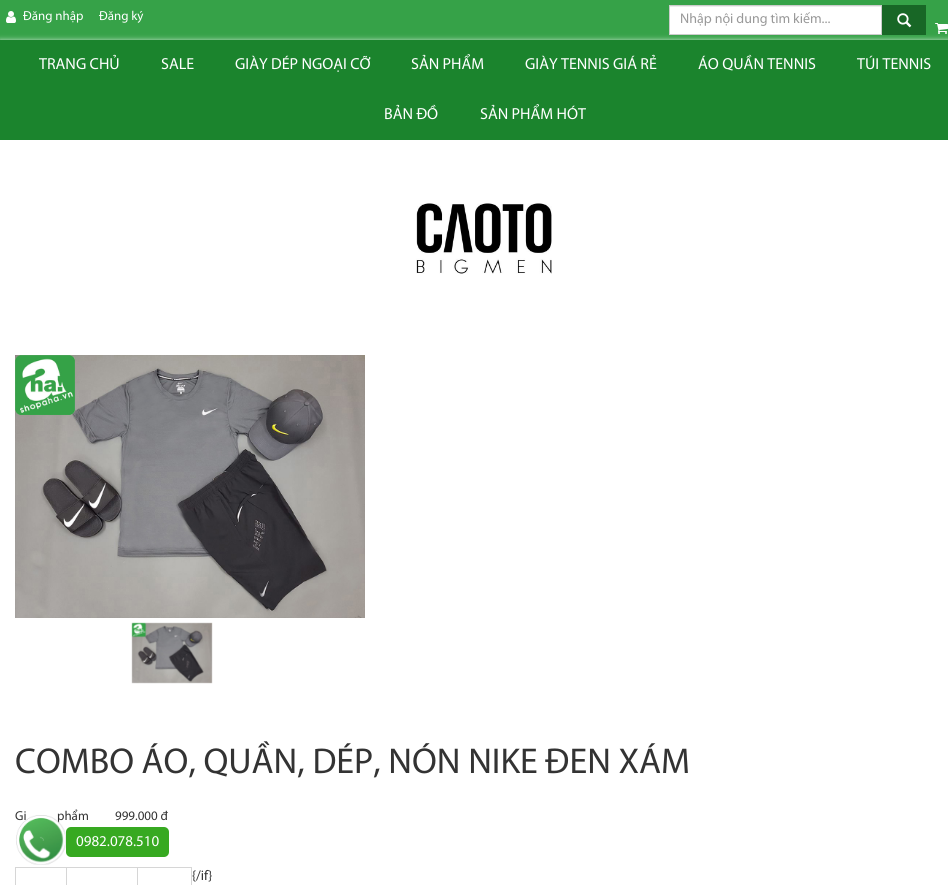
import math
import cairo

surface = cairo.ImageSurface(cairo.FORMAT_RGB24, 948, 885)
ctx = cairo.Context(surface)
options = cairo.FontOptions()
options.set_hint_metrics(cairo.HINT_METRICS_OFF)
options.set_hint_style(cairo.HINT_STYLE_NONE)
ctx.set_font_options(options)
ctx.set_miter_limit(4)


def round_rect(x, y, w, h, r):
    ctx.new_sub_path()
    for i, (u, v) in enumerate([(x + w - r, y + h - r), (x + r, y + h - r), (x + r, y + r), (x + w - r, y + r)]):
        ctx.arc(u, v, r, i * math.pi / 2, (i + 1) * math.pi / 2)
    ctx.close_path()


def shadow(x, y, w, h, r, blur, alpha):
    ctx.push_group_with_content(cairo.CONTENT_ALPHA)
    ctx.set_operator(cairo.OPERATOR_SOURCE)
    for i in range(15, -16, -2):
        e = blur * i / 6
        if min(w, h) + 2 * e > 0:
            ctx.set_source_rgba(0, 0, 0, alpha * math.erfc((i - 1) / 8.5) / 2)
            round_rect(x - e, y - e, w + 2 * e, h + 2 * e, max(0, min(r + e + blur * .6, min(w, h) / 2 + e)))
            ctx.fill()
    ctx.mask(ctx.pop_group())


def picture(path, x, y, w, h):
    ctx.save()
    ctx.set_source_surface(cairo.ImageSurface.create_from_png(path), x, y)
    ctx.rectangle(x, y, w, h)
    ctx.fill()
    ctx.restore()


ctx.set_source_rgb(1, 1, 1)
ctx.paint()
ctx.set_source_rgb(0.212, 0.635, 0.282)
ctx.rectangle(0, 0, 948, 40)
ctx.fill()
picture("img1.png", 6, 11, 10, 12)
ctx.select_font_face("Myriad")
ctx.set_font_size(13)
ctx.set_source_rgb(1, 1, 1)
ctx.move_to(23, 20)
ctx.show_text("Đăng nhập")
ctx.move_to(99, 20)
ctx.show_text("Đăng ký")
ctx.set_source_rgb(1, 1, 1)
shadow(0, 41, 948, 100, 0, 3, 1)
ctx.set_source_rgb(1, 1, 1)
ctx.rectangle(670, 7, 211, 27)
ctx.fill()
ctx.set_source_rgb(0.925, 0.925, 0.925)
ctx.rectangle(670, 6, 211, 1)
ctx.fill()
ctx.rectangle(669.5, 5.5, 212, 29)
ctx.set_source_rgb(0.8, 0.8, 0.8)
ctx.set_line_width(1)
ctx.stroke()
ctx.set_font_size(14)
ctx.set_source_rgb(0.6, 0.6, 0.6)
ctx.move_to(680, 23)
ctx.show_text("Nhập nội dung tìm kiếm...")
ctx.set_source_rgb(0.094, 0.404, 0.149)
ctx.rectangle(882, 5, 44, 30)
ctx.fill()
picture("img2.png", 897, 13, 15, 15)
picture("img3.png", 935, 23, 13, 11)
ctx.set_source_rgb(0.106, 0.518, 0.176)
ctx.rectangle(0, 40, 948, 100)
ctx.fill()
ctx.set_font_size(16)
ctx.set_source_rgb(1, 1, 1)
ctx.move_to(39, 69)
ctx.show_text("TRANG CHỦ")
ctx.move_to(161, 69)
ctx.show_text("SALE")
ctx.move_to(235, 69)
ctx.show_text("GIÀY DÉP NGOẠI CỠ")
ctx.move_to(411, 69)
ctx.show_text("SẢN PHẨM")
ctx.move_to(525, 69)
ctx.show_text("GIÀY TENNIS GIÁ RẺ")
ctx.move_to(698, 69)
ctx.show_text("ÁO QUẦN TENNIS")
ctx.move_to(857, 69)
ctx.show_text("TÚI TENNIS")
ctx.move_to(384, 119)
ctx.show_text("BẢN ĐỒ")
ctx.move_to(480, 119)
ctx.show_text("SẢN PHẨM HÓT")
picture("img4.png", 416, 203, 136, 71)
picture("img5.png", 15, 355, 350, 263)
picture("img6.png", 131, 622, 82, 62)
ctx.set_font_size(36)
ctx.set_source_rgb(0.2, 0.2, 0.2)
ctx.move_to(15, 773)
ctx.show_text("COMBO ÁO, QUẦN, DÉP, NÓN NIKE ĐEN XÁM")
ctx.set_font_size(13)
ctx.move_to(15, 820)
ctx.show_text("Gi")
ctx.move_to(57, 820)
ctx.show_text("phẩm")
ctx.move_to(115, 820)
ctx.show_text("999.000 đ")
ctx.rectangle(15.5, 867.5, 176, 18)
ctx.set_source_rgb(0.839, 0.839, 0.839)
ctx.stroke()
ctx.rectangle(66, 868, 1, 17)
ctx.fill()
ctx.rectangle(137, 868, 1, 17)
ctx.fill()
ctx.set_font_size(14)
ctx.set_source_rgb(0.2, 0.2, 0.2)
ctx.move_to(192, 880)
ctx.show_text("{/if}")
picture("img7.png", 16, 815, 50, 50)
ctx.set_source_rgb(0.216, 0.663, 0.129)
round_rect(66, 827, 103, 30, 5)
ctx.fill()
ctx.set_font_size(15)
ctx.set_source_rgb(1, 1, 1)
ctx.move_to(76, 846)
ctx.show_text("0982.078.510")
surface.write_to_png("page.png")
